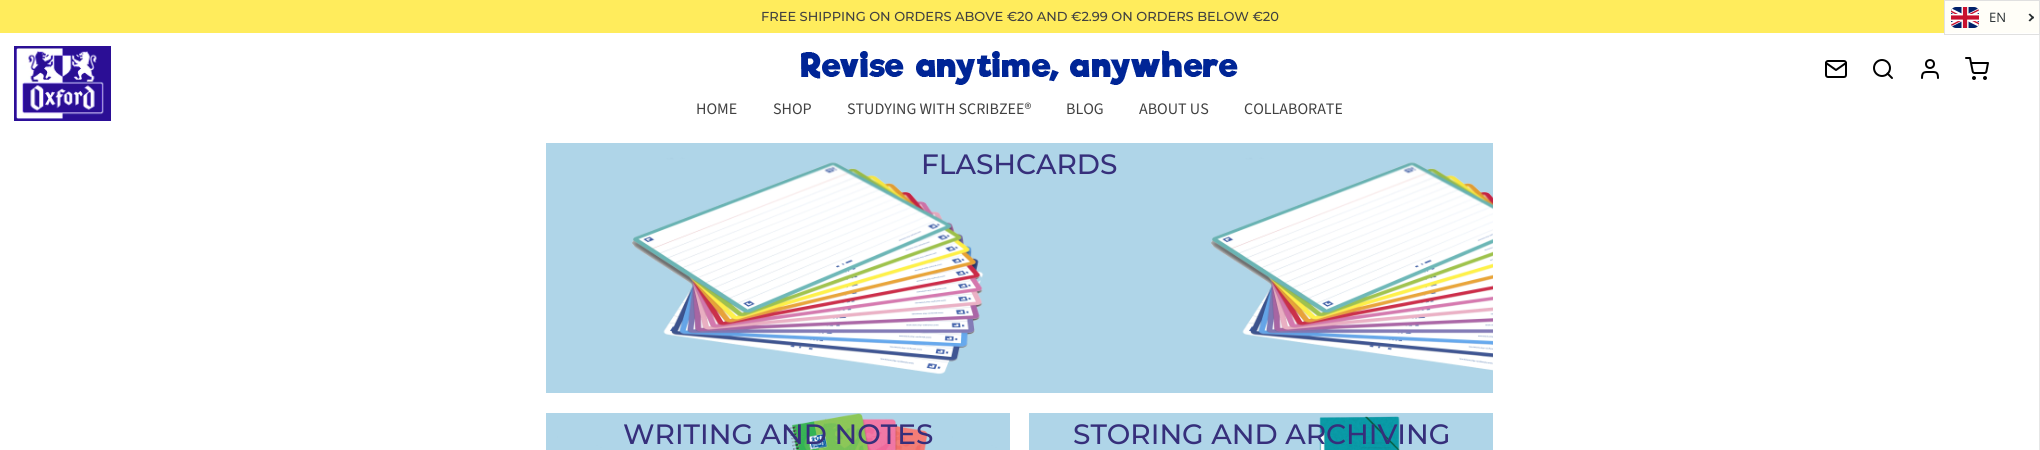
import math
import cairo

surface = cairo.ImageSurface(cairo.FORMAT_RGB24, 2040, 450)
ctx = cairo.Context(surface)
options = cairo.FontOptions()
options.set_hint_metrics(cairo.HINT_METRICS_OFF)
options.set_hint_style(cairo.HINT_STYLE_NONE)
ctx.set_font_options(options)
ctx.set_miter_limit(4)


def picture(path, x, y, w, h):
    ctx.save()
    ctx.set_source_surface(cairo.ImageSurface.create_from_png(path), x, y)
    ctx.rectangle(x, y, w, h)
    ctx.fill()
    ctx.restore()


ctx.set_source_rgb(1, 1, 1)
ctx.paint()
ctx.set_source_rgb(0.902, 0.902, 0.902)
ctx.rectangle(2039, 35, 1, 415)
ctx.fill()
ctx.set_source_rgb(1, 0.925, 0.361)
ctx.rectangle(0, 0, 1944, 33)
ctx.fill()
ctx.set_source_rgb(1, 0.996, 0.969)
ctx.rectangle(1945, 1, 94, 32)
ctx.fill()
ctx.select_font_face("Montserrat Medium")
ctx.set_font_size(13)
ctx.set_source_rgb(0.255, 0.255, 0.255)
ctx.move_to(761, 21)
ctx.show_text("FREE SHIPPING ON ORDERS ABOVE €20 AND €2.99 ON ORDERS BELOW €20")
picture("img1.png", 801, 50, 437, 35)
picture("img2.png", 14, 46, 97, 75)
ctx.arc(1882, 68, 8, 0, 2 * math.pi)
ctx.set_source_rgb(0, 0, 0)
ctx.stroke()
ctx.new_path()
ctx.move_to(1892, 78)
ctx.line_to(1887.5, 73.5)
ctx.move_to(1938, 78)
ctx.curve_to(1938, 71.5, 1935.5, 72, 1930, 72)
ctx.curve_to(1924.5, 72, 1922, 71.5, 1922, 78)
ctx.set_line_cap(cairo.LINE_CAP_ROUND)
ctx.set_line_join(cairo.LINE_JOIN_ROUND)
ctx.stroke()
picture("img3.png", 1965, 57, 24, 23)
picture("img4.png", 1825, 60, 22, 18)
ctx.arc(1930, 64, 4, 0, 2 * math.pi)
ctx.set_line_cap(cairo.LINE_CAP_BUTT)
ctx.set_line_join(cairo.LINE_JOIN_MITER)
ctx.stroke()
ctx.select_font_face("Source Sans Pro")
ctx.set_font_size(16)
ctx.set_source_rgb(0.255, 0.255, 0.255)
ctx.move_to(696, 114)
ctx.show_text("HOME")
ctx.move_to(773, 114)
ctx.show_text("SHOP")
ctx.move_to(847, 114)
ctx.show_text("STUDYING WITH SCRIBZEE®")
ctx.move_to(1066, 114)
ctx.show_text("BLOG")
ctx.move_to(1139, 114)
ctx.show_text("ABOUT US")
ctx.move_to(1244, 114)
ctx.show_text("COLLABORATE")
picture("img5.png", 546, 143, 947, 250)
ctx.select_font_face("Montserrat Medium")
ctx.set_font_size(28)
ctx.set_source_rgb(0.212, 0.184, 0.482)
ctx.move_to(921, 174)
ctx.show_text("FLASHCARDS")
picture("img6.png", 546, 413, 464, 37)
ctx.move_to(623, 444)
ctx.show_text("WRITING AND NOTES")
picture("img7.png", 1029, 413, 464, 37)
ctx.move_to(1073, 444)
ctx.show_text("STORING AND ARCHIVING")
ctx.rectangle(1944.5, 0.5, 95, 34)
ctx.set_source_rgb(0.878, 0.878, 0.878)
ctx.set_line_width(1)
ctx.stroke()
picture("img8.png", 1951, 7, 28, 21)
ctx.select_font_face("Open Sans")
ctx.set_font_size(13)
ctx.set_source_rgb(0.153, 0.18, 0.192)
ctx.move_to(1989, 22)
ctx.show_text("EN")
ctx.new_path()
ctx.move_to(2030, 13.5)
ctx.line_to(2034, 17.5)
ctx.line_to(2033, 19)
ctx.line_to(2028.5, 14.5)
ctx.close_path()
ctx.fill()
ctx.new_path()
ctx.move_to(2033, 16)
ctx.line_to(2034, 17.5)
ctx.line_to(2030, 21.5)
ctx.line_to(2028.5, 20.5)
ctx.close_path()
ctx.fill()
surface.write_to_png("page.png")
